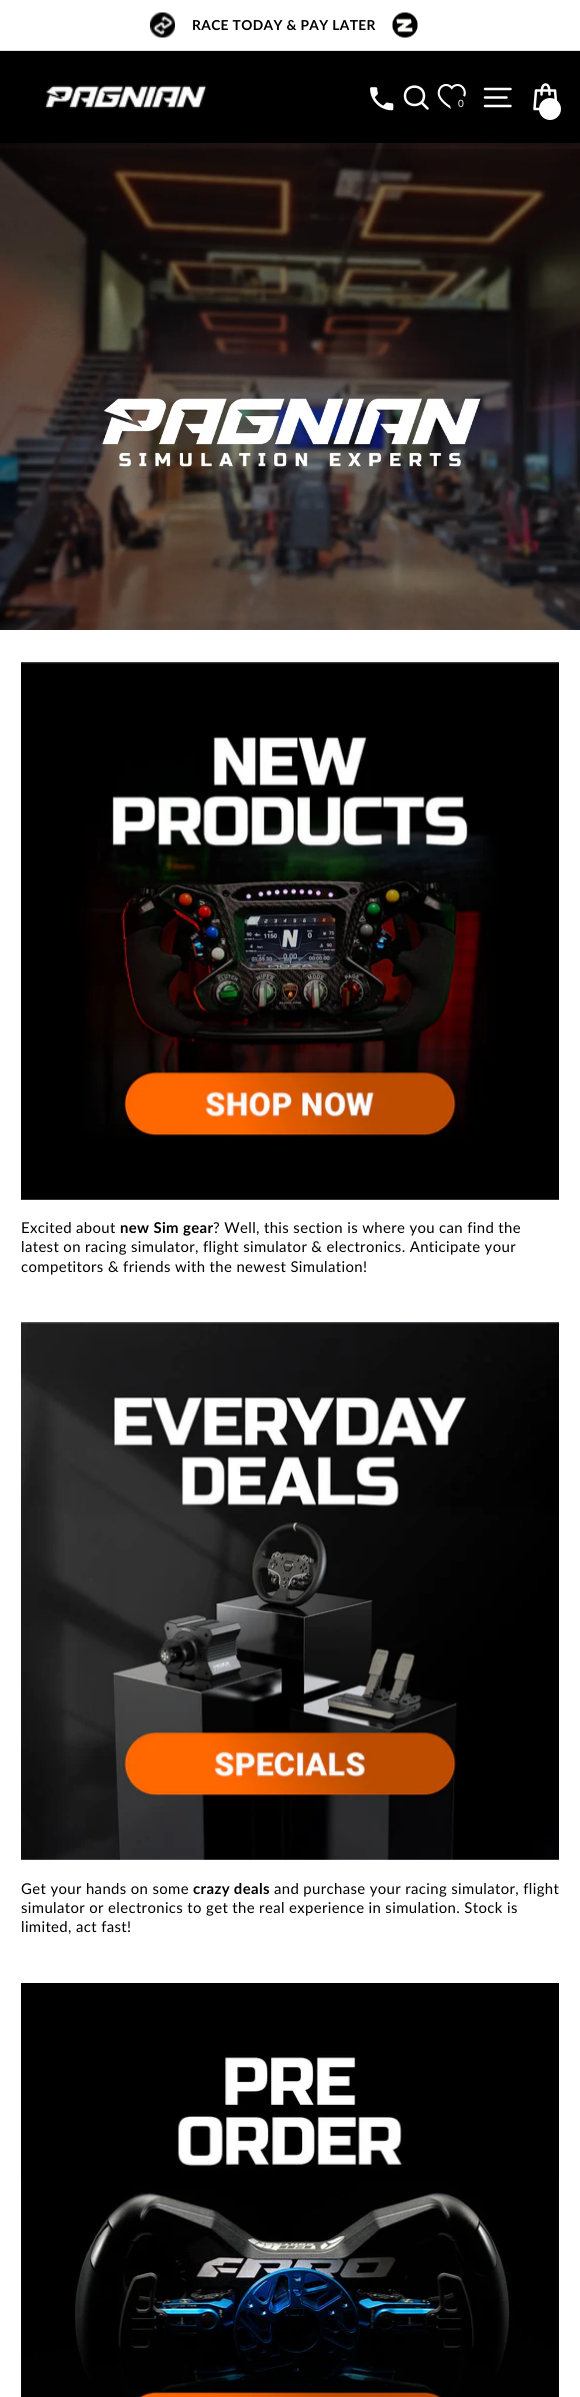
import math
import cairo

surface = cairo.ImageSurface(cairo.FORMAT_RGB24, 580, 2397)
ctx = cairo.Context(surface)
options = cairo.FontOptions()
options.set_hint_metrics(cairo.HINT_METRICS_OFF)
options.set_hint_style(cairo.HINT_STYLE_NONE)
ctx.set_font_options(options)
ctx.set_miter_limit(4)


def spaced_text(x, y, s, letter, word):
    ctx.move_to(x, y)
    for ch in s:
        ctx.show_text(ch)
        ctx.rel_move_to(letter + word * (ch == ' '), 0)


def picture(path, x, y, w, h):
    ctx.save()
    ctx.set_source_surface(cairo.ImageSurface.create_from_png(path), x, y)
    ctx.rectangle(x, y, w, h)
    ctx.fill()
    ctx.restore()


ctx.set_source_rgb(1, 1, 1)
ctx.paint()
ctx.set_source_rgb(0.882, 0.882, 0.882)
ctx.rectangle(0, 50, 580, 1)
ctx.fill()
picture("img1.png", 150, 12, 25, 26)
ctx.select_font_face("Lato", cairo.FONT_SLANT_NORMAL, cairo.FONT_WEIGHT_BOLD)
ctx.set_font_size(13.75)
ctx.set_source_rgb(0, 0, 0)
spaced_text(192, 30, "RACE TODAY & PAY LATER", 0.37, 0)
picture("img2.png", 392, 12, 26, 26)
ctx.rectangle(0, 51, 580, 92)
ctx.fill()
picture("img3.png", 45, 85, 162, 24)
picture("img4.png", 370, 87, 24, 24)
ctx.new_path()
ctx.move_to(424, 96)
ctx.curve_to(424, 108, 405, 108, 405, 96)
ctx.curve_to(405, 83.5, 424, 83.5, 424, 96)
ctx.close_path()
ctx.move_to(427.5, 108.5)
ctx.line_to(421.5, 102.5)
ctx.set_source_rgb(1, 1, 1)
ctx.set_line_width(2.5)
ctx.set_line_cap(cairo.LINE_CAP_ROUND)
ctx.set_line_join(cairo.LINE_JOIN_ROUND)
ctx.stroke()
picture("img5.png", 437, 84, 29, 25)
ctx.set_source_rgb(0, 0, 0)
ctx.arc(459.5, 104.5, 9.5, 0, 2 * math.pi)
ctx.fill()
ctx.select_font_face("Lato")
ctx.set_font_size(10)
ctx.set_source_rgb(1, 1, 1)
spaced_text(458, 107, "0", 0.37, 0)
ctx.new_path()
ctx.move_to(485, 89)
ctx.line_to(510.5, 89)
ctx.move_to(485, 97.5)
ctx.line_to(506.5, 97.5)
ctx.move_to(485, 106)
ctx.line_to(510.5, 106)
ctx.stroke()
ctx.new_path()
ctx.move_to(541.5, 94.5)
ctx.curve_to(541.5, 86.5, 543.5, 84.5, 545.5, 84.5)
ctx.curve_to(548, 84.5, 549.5, 86.5, 549.5, 94.5)
ctx.move_to(536, 90.5)
ctx.line_to(555, 90.5)
ctx.line_to(556.5, 109)
ctx.line_to(534.5, 109)
ctx.close_path()
ctx.stroke()
ctx.arc(550, 109, 11, 0, 2 * math.pi)
ctx.fill()
picture("img6.png", 0, 143, 580, 487)
picture("img7.png", 21, 662, 538, 538)
ctx.set_font_size(14.9)
ctx.set_source_rgb(0, 0, 0)
spaced_text(21, 1233, "Excited about", 0.37, 0)
ctx.select_font_face("Lato", cairo.FONT_SLANT_NORMAL, cairo.FONT_WEIGHT_BOLD)
spaced_text(120, 1233, "new Sim gear", 0.37, 0)
ctx.select_font_face("Lato")
spaced_text(213, 1233, "? Well, this section is where you can find the", 0.37, 0)
spaced_text(21, 1252, "latest on racing simulator, flight simulator & electronics. Anticipate your", 0.37, 0)
spaced_text(21, 1272, "competitors & friends with the newest Simulation!", 0.37, 0)
picture("img8.png", 21, 1322, 538, 538)
spaced_text(21, 1894, "Get your hands on some", 0.37, 0)
ctx.select_font_face("Lato", cairo.FONT_SLANT_NORMAL, cairo.FONT_WEIGHT_BOLD)
spaced_text(193, 1894, "crazy deals", 0.37, 0)
ctx.select_font_face("Lato")
spaced_text(274, 1894, "and purchase your racing simulator, flight", 0.37, 0)
spaced_text(21, 1913, "simulator or electronics to get the real experience in simulation. Stock is", 0.37, 0)
spaced_text(21, 1932, "limited, act fast!", 0.37, 0)
picture("img9.png", 21, 1983, 538, 414)
surface.write_to_png("page.png")
